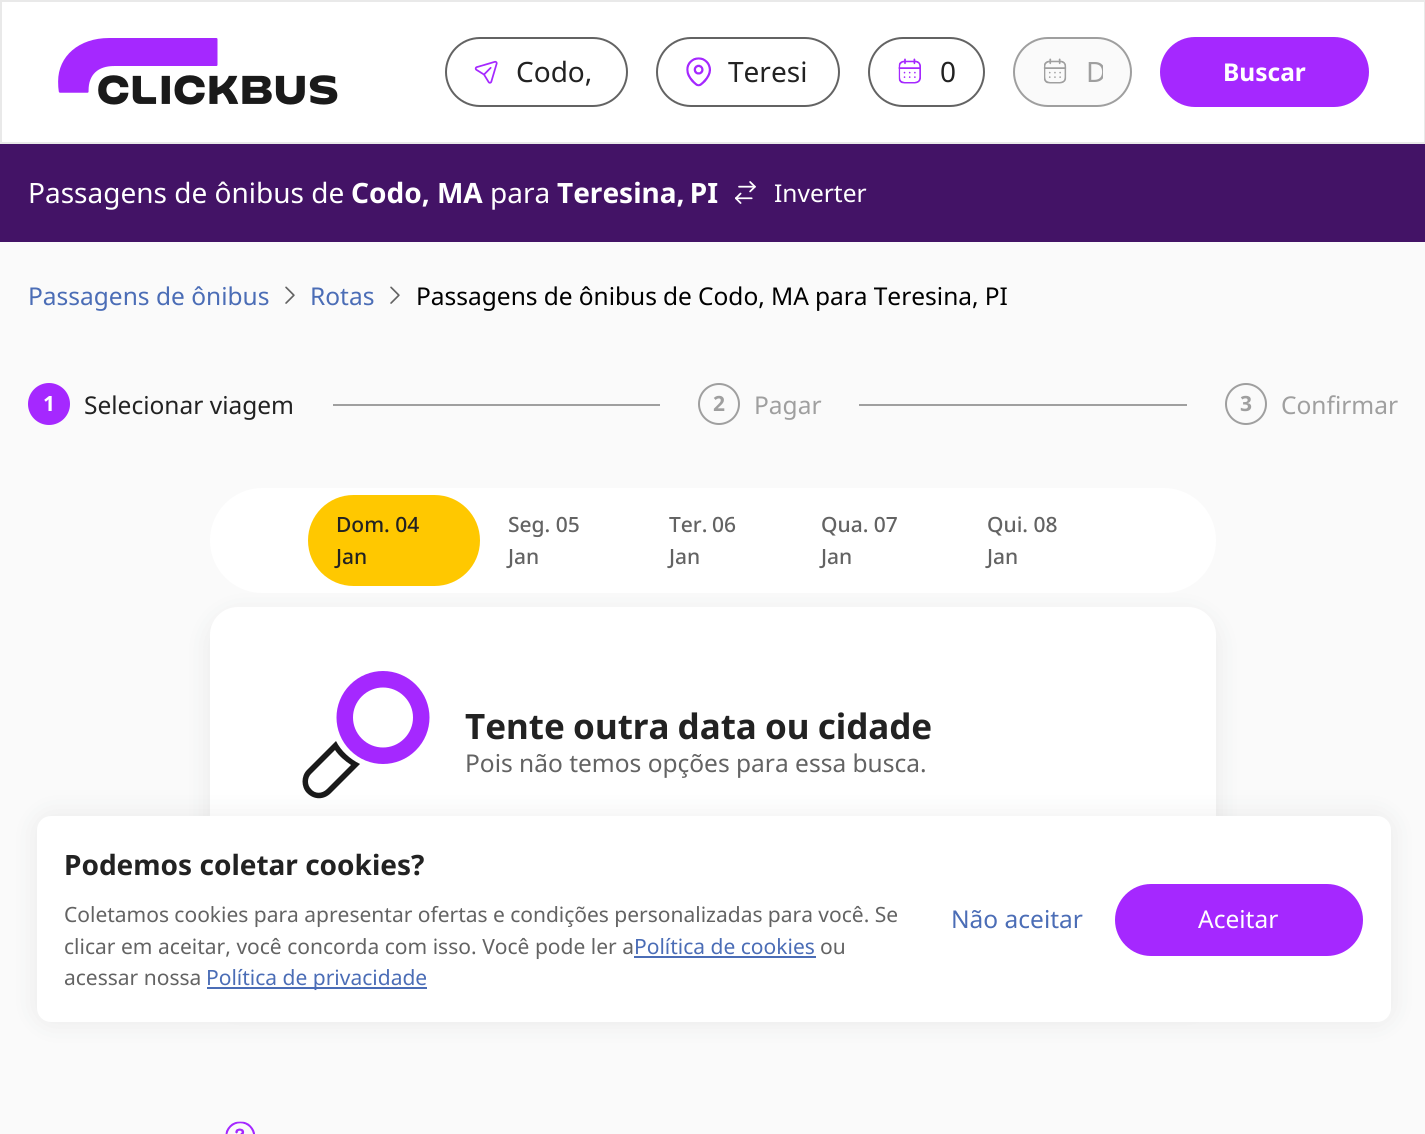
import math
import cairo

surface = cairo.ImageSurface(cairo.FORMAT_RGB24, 1425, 1134)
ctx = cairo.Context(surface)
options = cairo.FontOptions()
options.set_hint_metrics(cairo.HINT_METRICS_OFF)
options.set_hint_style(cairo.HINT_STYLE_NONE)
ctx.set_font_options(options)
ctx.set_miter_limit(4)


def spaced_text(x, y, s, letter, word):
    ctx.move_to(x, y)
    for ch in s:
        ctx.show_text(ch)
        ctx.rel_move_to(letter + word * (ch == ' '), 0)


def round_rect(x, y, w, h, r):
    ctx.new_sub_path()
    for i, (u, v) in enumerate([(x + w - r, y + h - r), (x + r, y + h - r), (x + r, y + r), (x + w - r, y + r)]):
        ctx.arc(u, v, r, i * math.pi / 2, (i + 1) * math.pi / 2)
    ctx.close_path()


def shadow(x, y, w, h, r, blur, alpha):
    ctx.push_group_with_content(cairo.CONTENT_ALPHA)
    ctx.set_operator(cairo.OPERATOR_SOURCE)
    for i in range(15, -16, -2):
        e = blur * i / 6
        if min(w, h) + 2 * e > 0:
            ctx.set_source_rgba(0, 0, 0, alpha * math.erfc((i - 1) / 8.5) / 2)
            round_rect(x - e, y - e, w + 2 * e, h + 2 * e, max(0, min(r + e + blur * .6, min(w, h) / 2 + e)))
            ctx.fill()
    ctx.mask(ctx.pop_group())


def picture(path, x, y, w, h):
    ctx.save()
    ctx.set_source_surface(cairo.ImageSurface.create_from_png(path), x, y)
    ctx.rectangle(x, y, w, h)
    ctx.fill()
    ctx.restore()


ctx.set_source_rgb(1, 1, 1)
ctx.paint()
ctx.rectangle(1, 1, 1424, 142)
ctx.set_source_rgb(0.914, 0.914, 0.914)
ctx.stroke()
picture("img1.png", 58, 38, 280, 67)
round_rect(446, 38, 181, 68, 34)
ctx.set_source_rgb(0.388, 0.388, 0.388)
ctx.stroke()
picture("img2.png", 474, 60, 24, 24)
ctx.select_font_face("Noto Sans")
ctx.set_font_size(28)
ctx.set_source_rgb(0.133, 0.133, 0.133)
ctx.move_to(516, 82)
ctx.show_text("Codo,")
round_rect(657, 38, 182, 68, 34)
ctx.set_source_rgb(0.388, 0.388, 0.388)
ctx.stroke()
picture("img3.png", 686, 57, 25, 30)
ctx.set_source_rgb(0.133, 0.133, 0.133)
ctx.move_to(728, 82)
ctx.show_text("Teresi")
round_rect(869, 38, 115, 68, 34)
ctx.set_source_rgb(0.388, 0.388, 0.388)
ctx.stroke()
picture("img4.png", 898, 58, 23, 26)
ctx.set_source_rgb(0.133, 0.133, 0.133)
ctx.move_to(940, 82)
ctx.show_text("0")
ctx.set_source_rgb(0.98, 0.98, 0.98)
round_rect(1014, 38, 117, 68, 34)
ctx.fill_preserve()
ctx.set_source_rgb(0.624, 0.624, 0.624)
ctx.stroke()
picture("img5.png", 1043, 58, 24, 26)
ctx.save()
ctx.rectangle(1085, 53, 18, 38)
ctx.clip()
ctx.move_to(1086, 82)
ctx.show_text("D")
ctx.restore()
ctx.set_source_rgb(0.647, 0.157, 1)
round_rect(1160, 37, 209, 70, 35)
ctx.fill()
ctx.select_font_face("Noto Sans", cairo.FONT_SLANT_NORMAL, cairo.FONT_WEIGHT_BOLD)
ctx.set_font_size(24.5)
ctx.set_source_rgb(1, 1, 1)
ctx.move_to(1223, 81)
ctx.show_text("Buscar")
ctx.set_source_rgb(0.263, 0.078, 0.4)
ctx.rectangle(0, 144, 1425, 98)
ctx.fill()
ctx.select_font_face("Noto Sans")
ctx.set_font_size(28)
ctx.set_source_rgb(1, 1, 1)
ctx.move_to(28, 203)
ctx.show_text("Passagens de ônibus de")
ctx.select_font_face("Noto Sans", cairo.FONT_SLANT_NORMAL, cairo.FONT_WEIGHT_BOLD)
ctx.move_to(351, 203)
ctx.show_text("Codo, MA")
ctx.select_font_face("Noto Sans")
ctx.move_to(490, 203)
ctx.show_text("para")
ctx.select_font_face("Noto Sans", cairo.FONT_SLANT_NORMAL, cairo.FONT_WEIGHT_BOLD)
spaced_text(557, 203, "Teresina, PI", 0, -2)
picture("img6.png", 735, 181, 21, 23)
ctx.select_font_face("Noto Sans")
ctx.set_font_size(24.5)
ctx.move_to(774, 202)
ctx.show_text("Inverter")
ctx.set_source_rgb(0.98, 0.98, 0.98)
ctx.rectangle(0, 242, 1425, 892)
ctx.fill()
ctx.set_source_rgb(0.294, 0.427, 0.714)
ctx.move_to(28, 305)
ctx.show_text("Passagens de ônibus")
picture("img7.png", 285, 286, 10, 18)
ctx.move_to(310, 305)
ctx.show_text("Rotas")
picture("img7.png", 390, 286, 10, 18)
ctx.set_source_rgb(0, 0, 0)
spaced_text(416, 305, "Passagens de ônibus de Codo, MA para Teresina, PI", 0, -0.25)
ctx.set_source_rgb(0.647, 0.157, 1)
ctx.new_path()
ctx.arc(49, 404, 20, 0, 2 * math.pi)
ctx.fill_preserve()
ctx.stroke()
ctx.select_font_face("Noto Sans", cairo.FONT_SLANT_NORMAL, cairo.FONT_WEIGHT_BOLD)
ctx.set_font_size(21)
ctx.set_source_rgb(1, 1, 1)
ctx.move_to(43, 411)
ctx.show_text("1")
ctx.select_font_face("Noto Sans")
ctx.set_font_size(24.5)
ctx.set_source_rgb(0.133, 0.133, 0.133)
ctx.move_to(84, 414)
ctx.show_text("Selecionar viagem")
ctx.set_source_rgb(0.624, 0.624, 0.624)
ctx.rectangle(333, 404, 327, 2)
ctx.fill()
ctx.arc(719, 404, 20, 0, 2 * math.pi)
ctx.stroke()
ctx.select_font_face("Noto Sans", cairo.FONT_SLANT_NORMAL, cairo.FONT_WEIGHT_BOLD)
ctx.set_font_size(21)
ctx.move_to(713, 411)
ctx.show_text("2")
ctx.select_font_face("Noto Sans")
ctx.set_font_size(24.5)
ctx.move_to(754, 414)
ctx.show_text("Pagar")
ctx.rectangle(859, 404, 328, 2)
ctx.fill()
ctx.arc(1246, 404, 20, 0, 2 * math.pi)
ctx.stroke()
ctx.select_font_face("Noto Sans", cairo.FONT_SLANT_NORMAL, cairo.FONT_WEIGHT_BOLD)
ctx.set_font_size(21)
ctx.move_to(1240, 411)
ctx.show_text("3")
ctx.select_font_face("Noto Sans")
ctx.set_font_size(24.5)
ctx.move_to(1281, 414)
ctx.show_text("Confirmar")
ctx.set_source_rgb(1, 1, 1)
round_rect(210, 488, 1006, 105, 52.5)
ctx.fill()
ctx.set_source_rgb(1, 0.784, 0)
round_rect(308, 495, 172, 91, 45.5)
ctx.fill()
ctx.select_font_face("Noto Sans Medium")
ctx.set_font_size(21)
ctx.set_source_rgb(0.133, 0.133, 0.133)
ctx.move_to(336, 532)
ctx.show_text("Dom. 04")
ctx.move_to(336, 564)
ctx.show_text("Jan")
ctx.set_source_rgb(0.388, 0.388, 0.388)
ctx.move_to(508, 532)
ctx.show_text("Seg. 05")
ctx.move_to(508, 564)
ctx.show_text("Jan")
spaced_text(669, 532, "Ter. 06", 0, -1)
ctx.move_to(669, 564)
ctx.show_text("Jan")
ctx.move_to(821, 532)
ctx.show_text("Qua. 07")
ctx.move_to(821, 564)
ctx.show_text("Jan")
ctx.move_to(987, 532)
ctx.show_text("Qui. 08")
ctx.move_to(987, 564)
ctx.show_text("Jan")
ctx.set_source_rgb(0.165, 0.169, 0.176)
shadow(210, 614, 1006, 391, 28, 14, 0.08)
ctx.set_source_rgb(1, 1, 1)
round_rect(210, 607, 1006, 391, 28)
ctx.fill()
ctx.new_path()
ctx.move_to(410, 744.5)
ctx.curve_to(425, 729.5, 425, 705.5, 410, 690.5)
ctx.curve_to(395, 675.5, 371, 675.5, 356, 690.5)
ctx.curve_to(341, 705.5, 341, 729.5, 356, 744.5)
ctx.curve_to(371, 759.5, 395, 759.5, 410, 744.5)
ctx.close_path()
ctx.set_source_rgb(0.647, 0.157, 1)
ctx.set_line_width(16.5)
ctx.stroke()
ctx.set_source_rgb(0.102, 0.102, 0.102)
ctx.new_path()
ctx.move_to(360, 764)
ctx.curve_to(350, 759, 341, 751, 336, 741)
ctx.line_to(307, 770)
ctx.curve_to(301, 776, 301, 787, 307, 793)
ctx.curve_to(314, 800, 324, 800, 331, 793)
ctx.close_path()
ctx.move_to(351, 765)
ctx.line_to(327, 789)
ctx.curve_to(322, 794, 315, 794, 311, 789)
ctx.curve_to(307, 785, 307, 778, 311, 774)
ctx.line_to(335, 750)
ctx.curve_to(339, 756, 345, 761, 351, 765)
ctx.close_path()
ctx.fill()
ctx.select_font_face("Noto Sans", cairo.FONT_SLANT_NORMAL, cairo.FONT_WEIGHT_BOLD)
ctx.set_font_size(35)
ctx.set_source_rgb(0.133, 0.133, 0.133)
spaced_text(465, 739, "Tente outra data ou cidade", 0, -1)
ctx.select_font_face("Noto Sans")
ctx.set_font_size(24.5)
ctx.set_source_rgb(0.388, 0.388, 0.388)
ctx.move_to(465, 772)
ctx.show_text("Pois não temos opções para essa busca.")
picture("img8.png", 225, 1121, 30, 13)
ctx.set_source_rgb(0.165, 0.169, 0.176)
shadow(37, 816, 1354, 206, 14, 14, 0.08)
ctx.set_source_rgb(1, 1, 1)
round_rect(37, 816, 1354, 206, 14)
ctx.fill()
ctx.select_font_face("Noto Sans", cairo.FONT_SLANT_NORMAL, cairo.FONT_WEIGHT_BOLD)
ctx.set_font_size(28)
ctx.set_source_rgb(0.133, 0.133, 0.133)
ctx.move_to(64, 875)
ctx.show_text("Podemos coletar cookies?")
ctx.select_font_face("Noto Sans")
ctx.set_font_size(21)
ctx.set_source_rgb(0.388, 0.388, 0.388)
spaced_text(64, 922, "Coletamos cookies para apresentar ofertas e condições personalizadas para você. Se", 0, -0.1)
spaced_text(64, 954, "clicar em aceitar, você concorda com isso. Você pode ler a", 0, 0.1)
ctx.set_source_rgb(0.294, 0.427, 0.714)
ctx.move_to(634, 954)
ctx.show_text("Política de cookies")
ctx.rectangle(634, 956, 182, 2)
ctx.fill()
ctx.set_source_rgb(0.388, 0.388, 0.388)
ctx.move_to(820, 954)
ctx.show_text("ou")
ctx.move_to(64, 985)
ctx.show_text("acessar nossa")
ctx.set_source_rgb(0.294, 0.427, 0.714)
ctx.rectangle(207, 987, 220, 2)
ctx.fill()
ctx.move_to(206, 985)
ctx.show_text("Política de privacidade")
ctx.set_font_size(24.5)
ctx.move_to(951, 928)
ctx.show_text("Não aceitar")
ctx.set_source_rgb(0.647, 0.157, 1)
round_rect(1115, 884, 248, 72, 36)
ctx.fill()
ctx.set_source_rgb(1, 1, 1)
ctx.move_to(1198, 928)
ctx.show_text("Aceitar")
surface.write_to_png("page.png")
